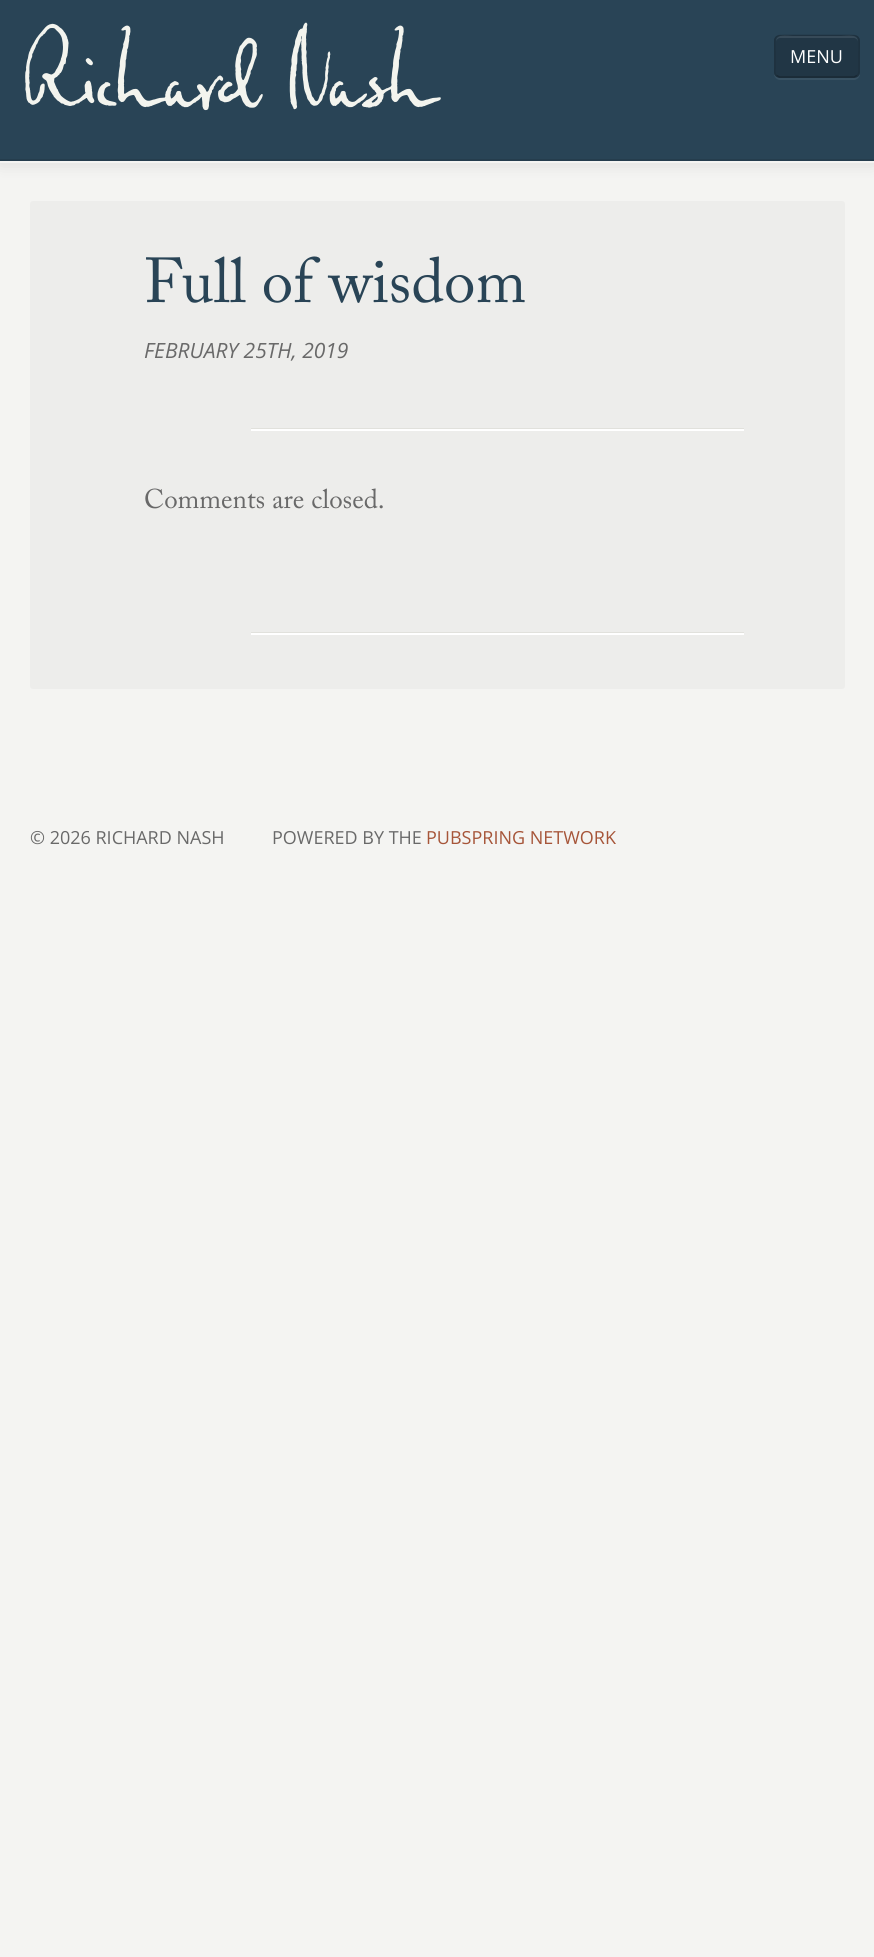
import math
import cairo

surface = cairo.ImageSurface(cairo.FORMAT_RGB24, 874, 1957)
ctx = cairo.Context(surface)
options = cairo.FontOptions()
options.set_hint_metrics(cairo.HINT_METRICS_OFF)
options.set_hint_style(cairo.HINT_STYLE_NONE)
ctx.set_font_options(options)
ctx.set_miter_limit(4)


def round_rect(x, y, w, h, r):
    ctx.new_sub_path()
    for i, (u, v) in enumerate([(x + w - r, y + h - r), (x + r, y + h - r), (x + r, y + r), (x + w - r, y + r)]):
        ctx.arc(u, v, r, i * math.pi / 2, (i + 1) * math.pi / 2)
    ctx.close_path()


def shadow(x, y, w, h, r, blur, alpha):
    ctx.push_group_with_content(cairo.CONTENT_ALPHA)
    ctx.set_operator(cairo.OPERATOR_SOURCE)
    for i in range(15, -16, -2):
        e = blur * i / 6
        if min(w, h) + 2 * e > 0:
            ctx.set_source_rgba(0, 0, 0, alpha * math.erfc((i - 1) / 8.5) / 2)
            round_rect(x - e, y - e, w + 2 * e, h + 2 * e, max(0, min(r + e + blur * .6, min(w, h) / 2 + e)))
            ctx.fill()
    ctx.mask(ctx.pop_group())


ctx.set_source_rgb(0.957, 0.957, 0.949)
ctx.paint()
ctx.set_source_rgb(0, 0, 0)
shadow(0, 2, 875, 162, 0, 7.5, 0.1)
ctx.set_source_rgb(0.161, 0.267, 0.337)
ctx.rectangle(0, 0, 874, 159)
ctx.fill()
ctx.set_source_rgb(0.145, 0.239, 0.302)
ctx.rectangle(0, 159, 874, 2)
ctx.fill()
ctx.set_source_rgb(0.957, 0.957, 0.949)
ctx.rectangle(0, 161, 874, 2)
ctx.fill()
ctx.select_font_face("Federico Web")
ctx.set_font_size(105)
ctx.set_source_rgb(0.953, 0.957, 0.933)
ctx.move_to(15, 104)
ctx.show_text("Richard Nash")
ctx.set_source_rgb(0.224, 0.322, 0.388)
ctx.new_path()
ctx.move_to(774, 72)
ctx.line_to(774, 74)
ctx.curve_to(774, 77, 777, 80, 780, 80)
ctx.line_to(854, 80)
ctx.curve_to(857, 80, 860, 77, 860, 74)
ctx.line_to(860, 42)
ctx.line_to(859, 39)
ctx.line_to(860, 62)
ctx.curve_to(860, 80, 860, 78, 841, 78)
ctx.line_to(780, 78)
ctx.curve_to(777, 78, 774, 75, 774, 72)
ctx.close_path()
ctx.fill()
ctx.set_source_rgb(0.129, 0.212, 0.271)
round_rect(774, 35, 86, 43, 6)
ctx.fill()
ctx.save()
round_rect(774, 35, 86, 43, 6)
ctx.clip()
ctx.rectangle(774, 36, 86, 41)
ctx.fill()
ctx.restore()
ctx.set_source_rgb(0.216, 0.29, 0.345)
ctx.new_path()
ctx.move_to(780, 38)
ctx.line_to(854, 38)
ctx.curve_to(856, 38, 858, 40, 858, 42)
ctx.curve_to(858, 33, 847, 36, 841, 36)
ctx.line_to(793, 36)
ctx.curve_to(787, 36, 776, 33, 776, 42)
ctx.curve_to(776, 40, 778, 38, 780, 38)
ctx.close_path()
ctx.fill()
ctx.new_path()
ctx.move_to(857, 75.5)
ctx.line_to(854, 77)
ctx.line_to(779.5, 77)
ctx.line_to(776.5, 75.5)
ctx.set_source_rgb(0.098, 0.161, 0.204)
ctx.set_line_width(1.5)
ctx.stroke()
ctx.new_path()
ctx.move_to(776.5, 75.5)
ctx.curve_to(774, 73.5, 775, 69.5, 775, 67)
ctx.line_to(775, 56)
ctx.curve_to(775, 34.5, 771, 35, 792, 35)
ctx.line_to(841, 35)
ctx.curve_to(862.5, 35, 859, 34.5, 859, 56)
ctx.line_to(859, 67)
ctx.curve_to(859, 69.5, 859.5, 73.5, 857, 75.5)
ctx.set_source_rgba(0, 0, 0, 0.1)
ctx.stroke()
ctx.select_font_face("Open Sans")
ctx.set_font_size(18)
ctx.set_source_rgb(1, 1, 1)
ctx.move_to(790, 63)
ctx.show_text("MENU")
ctx.set_source_rgb(0.929, 0.929, 0.918)
round_rect(30, 201, 815, 488, 3)
ctx.fill()
ctx.select_font_face("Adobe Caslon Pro")
ctx.set_font_size(63)
ctx.set_source_rgb(0.161, 0.267, 0.337)
ctx.move_to(144, 302)
ctx.show_text("Full of wisdom")
ctx.select_font_face("Open Sans", cairo.FONT_SLANT_ITALIC)
ctx.set_font_size(21)
ctx.set_source_rgb(0.412, 0.412, 0.412)
ctx.move_to(144, 358)
ctx.show_text("FEBRUARY 25TH, 2019")
ctx.set_source_rgb(0.882, 0.882, 0.863)
ctx.rectangle(251, 428, 493, 1)
ctx.fill()
ctx.set_source_rgb(1, 1, 1)
ctx.rectangle(251, 429, 493, 2)
ctx.fill()
ctx.select_font_face("Adobe Caslon Pro")
ctx.set_font_size(27)
ctx.set_source_rgb(0.412, 0.412, 0.412)
ctx.move_to(144, 508)
ctx.show_text("Comments are closed.")
ctx.set_source_rgb(0.882, 0.882, 0.863)
ctx.rectangle(251, 632, 493, 1)
ctx.fill()
ctx.set_source_rgb(1, 1, 1)
ctx.rectangle(251, 633, 493, 2)
ctx.fill()
ctx.select_font_face("Open Sans")
ctx.set_font_size(18)
ctx.set_source_rgb(0.412, 0.412, 0.412)
ctx.move_to(30, 844)
ctx.show_text("© 2026 RICHARD NASH")
ctx.move_to(272, 844)
ctx.show_text("POWERED BY THE")
ctx.set_source_rgb(0.651, 0.333, 0.224)
ctx.move_to(426, 844)
ctx.show_text("PUBSPRING NETWORK")
surface.write_to_png("page.png")
